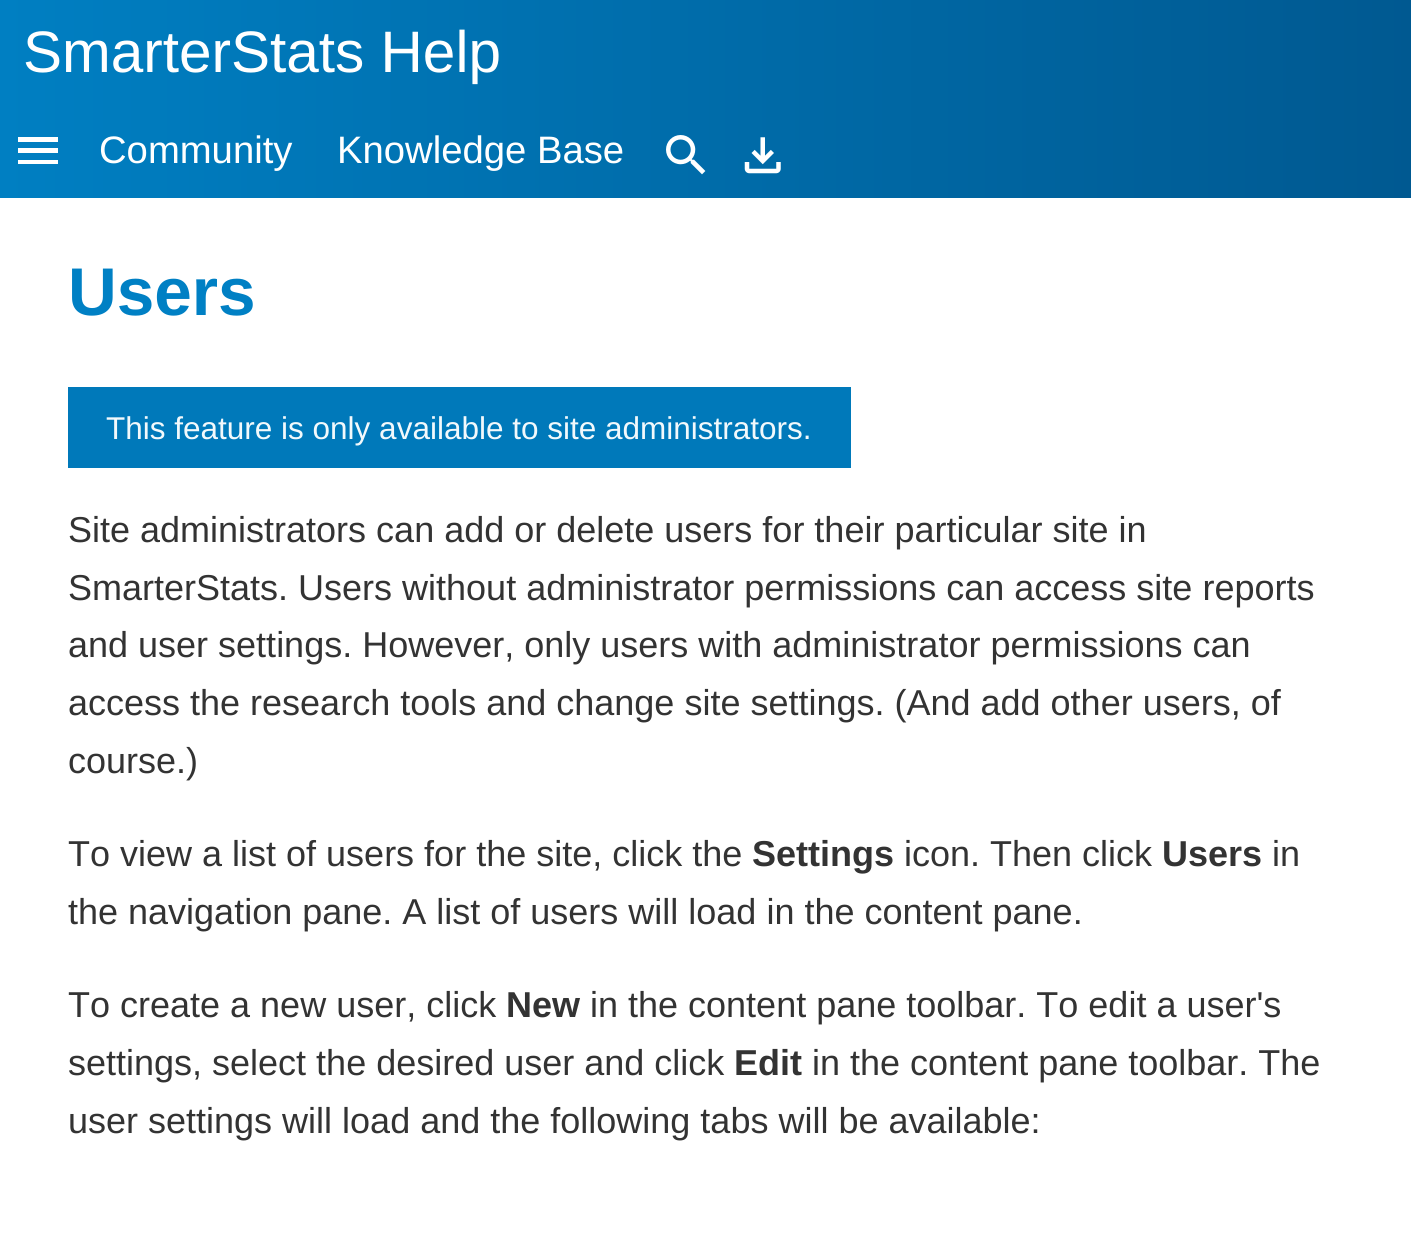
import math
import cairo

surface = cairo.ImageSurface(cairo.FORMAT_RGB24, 1411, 1236)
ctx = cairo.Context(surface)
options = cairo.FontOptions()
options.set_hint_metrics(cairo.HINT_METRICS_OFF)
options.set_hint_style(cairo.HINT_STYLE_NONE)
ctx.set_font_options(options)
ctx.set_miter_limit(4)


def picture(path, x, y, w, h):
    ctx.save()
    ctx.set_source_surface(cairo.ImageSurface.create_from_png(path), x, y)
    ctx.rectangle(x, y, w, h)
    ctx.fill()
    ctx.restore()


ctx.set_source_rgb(1, 1, 1)
ctx.paint()
gradient = cairo.LinearGradient(0, 99, 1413, 99)
gradient.add_color_stop_rgba(0, 0, 0.498, 0.761, 1)
gradient.add_color_stop_rgba(1, 0, 0.349, 0.569, 1)
ctx.set_source(gradient)
ctx.rectangle(0, 0, 1411, 198)
ctx.fill()
ctx.select_font_face("Liberation Sans")
ctx.set_font_size(58.5)
ctx.set_source_rgb(1, 1, 1)
ctx.move_to(23, 72)
ctx.show_text("SmarterStats Help")
ctx.new_path()
ctx.move_to(18, 164)
ctx.line_to(58, 164)
ctx.line_to(58, 160)
ctx.line_to(18, 160)
ctx.close_path()
ctx.move_to(18, 153)
ctx.line_to(58, 153)
ctx.line_to(58, 148)
ctx.line_to(18, 148)
ctx.close_path()
ctx.move_to(18, 137)
ctx.line_to(18, 142)
ctx.line_to(58, 142)
ctx.line_to(58, 137)
ctx.close_path()
ctx.fill()
ctx.set_font_size(38.25)
ctx.move_to(99, 163)
ctx.show_text("Community")
ctx.move_to(337, 163)
ctx.show_text("Knowledge Base")
picture("img1.png", 666, 135, 40, 40)
picture("img2.png", 744, 137, 37, 37)
ctx.select_font_face("Liberation Sans", cairo.FONT_SLANT_NORMAL, cairo.FONT_WEIGHT_BOLD)
ctx.set_font_size(67.5)
ctx.set_source_rgb(0, 0.502, 0.769)
ctx.move_to(68, 315)
ctx.show_text("Users")
ctx.set_source_rgb(0, 0.475, 0.729)
ctx.rectangle(68, 387, 783, 81)
ctx.fill()
ctx.select_font_face("Liberation Sans")
ctx.set_font_size(31.5)
ctx.set_source_rgb(0.949, 0.973, 0.988)
ctx.move_to(106, 439)
ctx.show_text("This feature is only available to site administrators.")
ctx.set_font_size(36)
ctx.set_source_rgb(0.2, 0.2, 0.2)
ctx.move_to(68, 542)
ctx.show_text("Site administrators can add or delete users for their particular site in")
ctx.move_to(68, 600)
ctx.show_text("SmarterStats. Users without administrator permissions can access site reports")
ctx.move_to(68, 657)
ctx.show_text("and user settings. However, only users with administrator permissions can")
ctx.move_to(68, 715)
ctx.show_text("access the research tools and change site settings. (And add other users, of")
ctx.move_to(68, 773)
ctx.show_text("course.)")
ctx.move_to(68, 866)
ctx.show_text("To view a list of users for the site, click the")
ctx.select_font_face("Liberation Sans", cairo.FONT_SLANT_NORMAL, cairo.FONT_WEIGHT_BOLD)
ctx.move_to(752, 866)
ctx.show_text("Settings")
ctx.select_font_face("Liberation Sans")
ctx.move_to(904, 866)
ctx.show_text("icon. Then click")
ctx.select_font_face("Liberation Sans", cairo.FONT_SLANT_NORMAL, cairo.FONT_WEIGHT_BOLD)
ctx.move_to(1162, 866)
ctx.show_text("Users")
ctx.select_font_face("Liberation Sans")
ctx.move_to(1272, 866)
ctx.show_text("in")
ctx.move_to(68, 924)
ctx.show_text("the navigation pane. A list of users will load in the content pane.")
ctx.move_to(68, 1017)
ctx.show_text("To create a new user, click")
ctx.select_font_face("Liberation Sans", cairo.FONT_SLANT_NORMAL, cairo.FONT_WEIGHT_BOLD)
ctx.move_to(506, 1017)
ctx.show_text("New")
ctx.select_font_face("Liberation Sans")
ctx.move_to(590, 1017)
ctx.show_text("in the content pane toolbar. To edit a user's")
ctx.move_to(68, 1075)
ctx.show_text("settings, select the desired user and click")
ctx.select_font_face("Liberation Sans", cairo.FONT_SLANT_NORMAL, cairo.FONT_WEIGHT_BOLD)
ctx.move_to(734, 1075)
ctx.show_text("Edit")
ctx.select_font_face("Liberation Sans")
ctx.move_to(812, 1075)
ctx.show_text("in the content pane toolbar. The")
ctx.move_to(68, 1133)
ctx.show_text("user settings will load and the following tabs will be available:")
surface.write_to_png("page.png")
